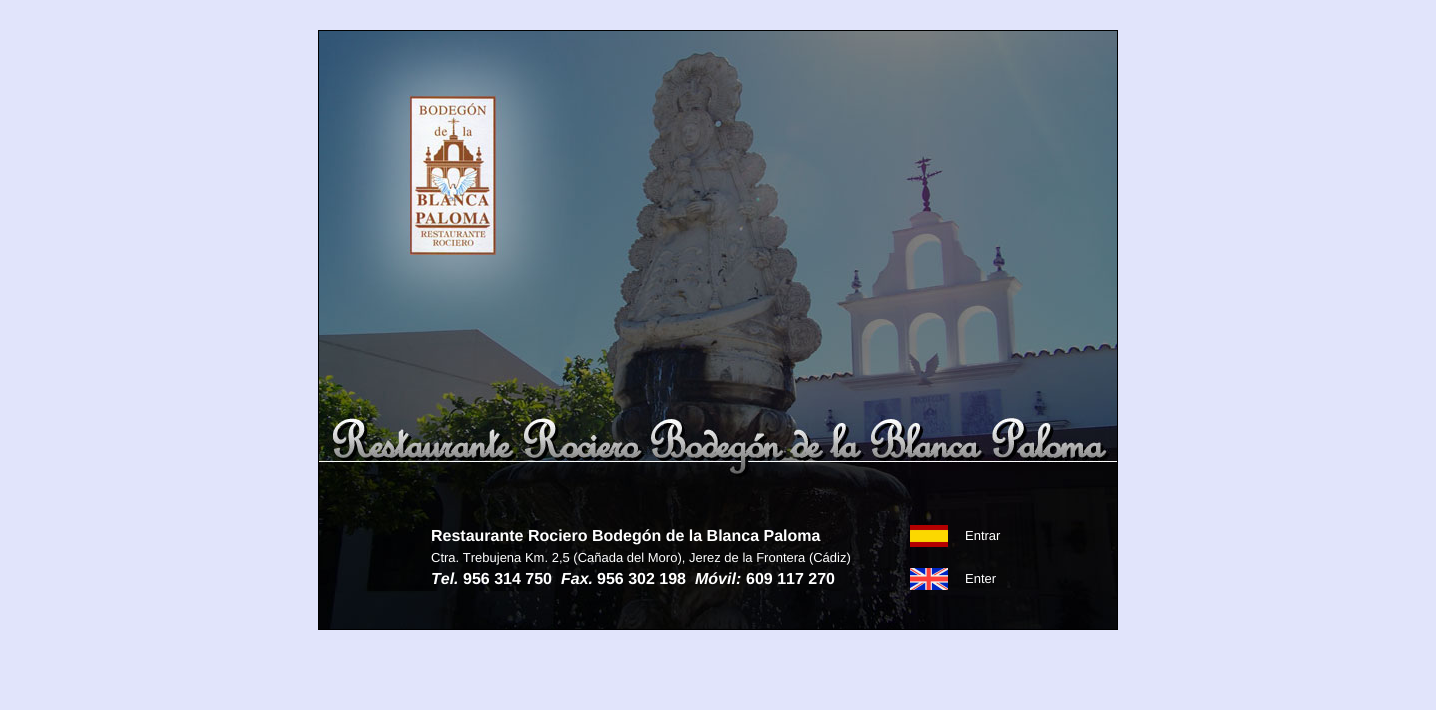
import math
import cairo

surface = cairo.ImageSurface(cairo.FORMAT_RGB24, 1436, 710)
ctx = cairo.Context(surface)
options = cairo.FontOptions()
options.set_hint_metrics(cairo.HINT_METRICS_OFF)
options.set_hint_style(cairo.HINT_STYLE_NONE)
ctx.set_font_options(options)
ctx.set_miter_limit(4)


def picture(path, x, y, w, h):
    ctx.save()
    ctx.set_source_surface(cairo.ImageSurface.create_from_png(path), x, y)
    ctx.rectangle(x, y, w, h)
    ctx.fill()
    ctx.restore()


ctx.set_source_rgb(0.882, 0.894, 0.984)
ctx.paint()
picture("img1.png", 319, 31, 798, 598)
ctx.rectangle(318.5, 30.5, 799, 599)
ctx.set_source_rgb(0, 0, 0)
ctx.set_line_width(1)
ctx.stroke()
ctx.select_font_face("Liberation Sans", cairo.FONT_SLANT_NORMAL, cairo.FONT_WEIGHT_BOLD)
ctx.set_font_size(16)
ctx.set_source_rgb(1, 1, 1)
ctx.move_to(431, 541)
ctx.show_text("Restaurante Rociero Bodegón de la Blanca Paloma")
ctx.select_font_face("Liberation Sans")
ctx.set_font_size(13)
ctx.move_to(431, 562)
ctx.show_text("Ctra. Trebujena Km. 2,5 (Cañada del Moro), Jerez de la Frontera (Cádiz)")
ctx.select_font_face("Liberation Sans", cairo.FONT_SLANT_ITALIC, cairo.FONT_WEIGHT_BOLD)
ctx.set_font_size(16)
ctx.move_to(431, 584)
ctx.show_text("Tel.")
ctx.select_font_face("Liberation Sans", cairo.FONT_SLANT_NORMAL, cairo.FONT_WEIGHT_BOLD)
ctx.move_to(463, 584)
ctx.show_text("956 314 750")
ctx.select_font_face("Liberation Sans", cairo.FONT_SLANT_ITALIC, cairo.FONT_WEIGHT_BOLD)
ctx.move_to(561, 584)
ctx.show_text("Fax.")
ctx.select_font_face("Liberation Sans", cairo.FONT_SLANT_NORMAL, cairo.FONT_WEIGHT_BOLD)
ctx.move_to(597, 584)
ctx.show_text("956 302 198")
ctx.select_font_face("Liberation Sans", cairo.FONT_SLANT_ITALIC, cairo.FONT_WEIGHT_BOLD)
ctx.move_to(695, 584)
ctx.show_text("Móvil:")
ctx.select_font_face("Liberation Sans", cairo.FONT_SLANT_NORMAL, cairo.FONT_WEIGHT_BOLD)
ctx.move_to(746, 584)
ctx.show_text("609 117 270")
picture("img2.png", 910, 525, 38, 22)
ctx.select_font_face("Liberation Sans")
ctx.set_font_size(13)
ctx.move_to(965, 540)
ctx.show_text("Entrar")
picture("img3.png", 910, 568, 38, 22)
ctx.move_to(965, 583)
ctx.show_text("Enter")
surface.write_to_png("page.png")
